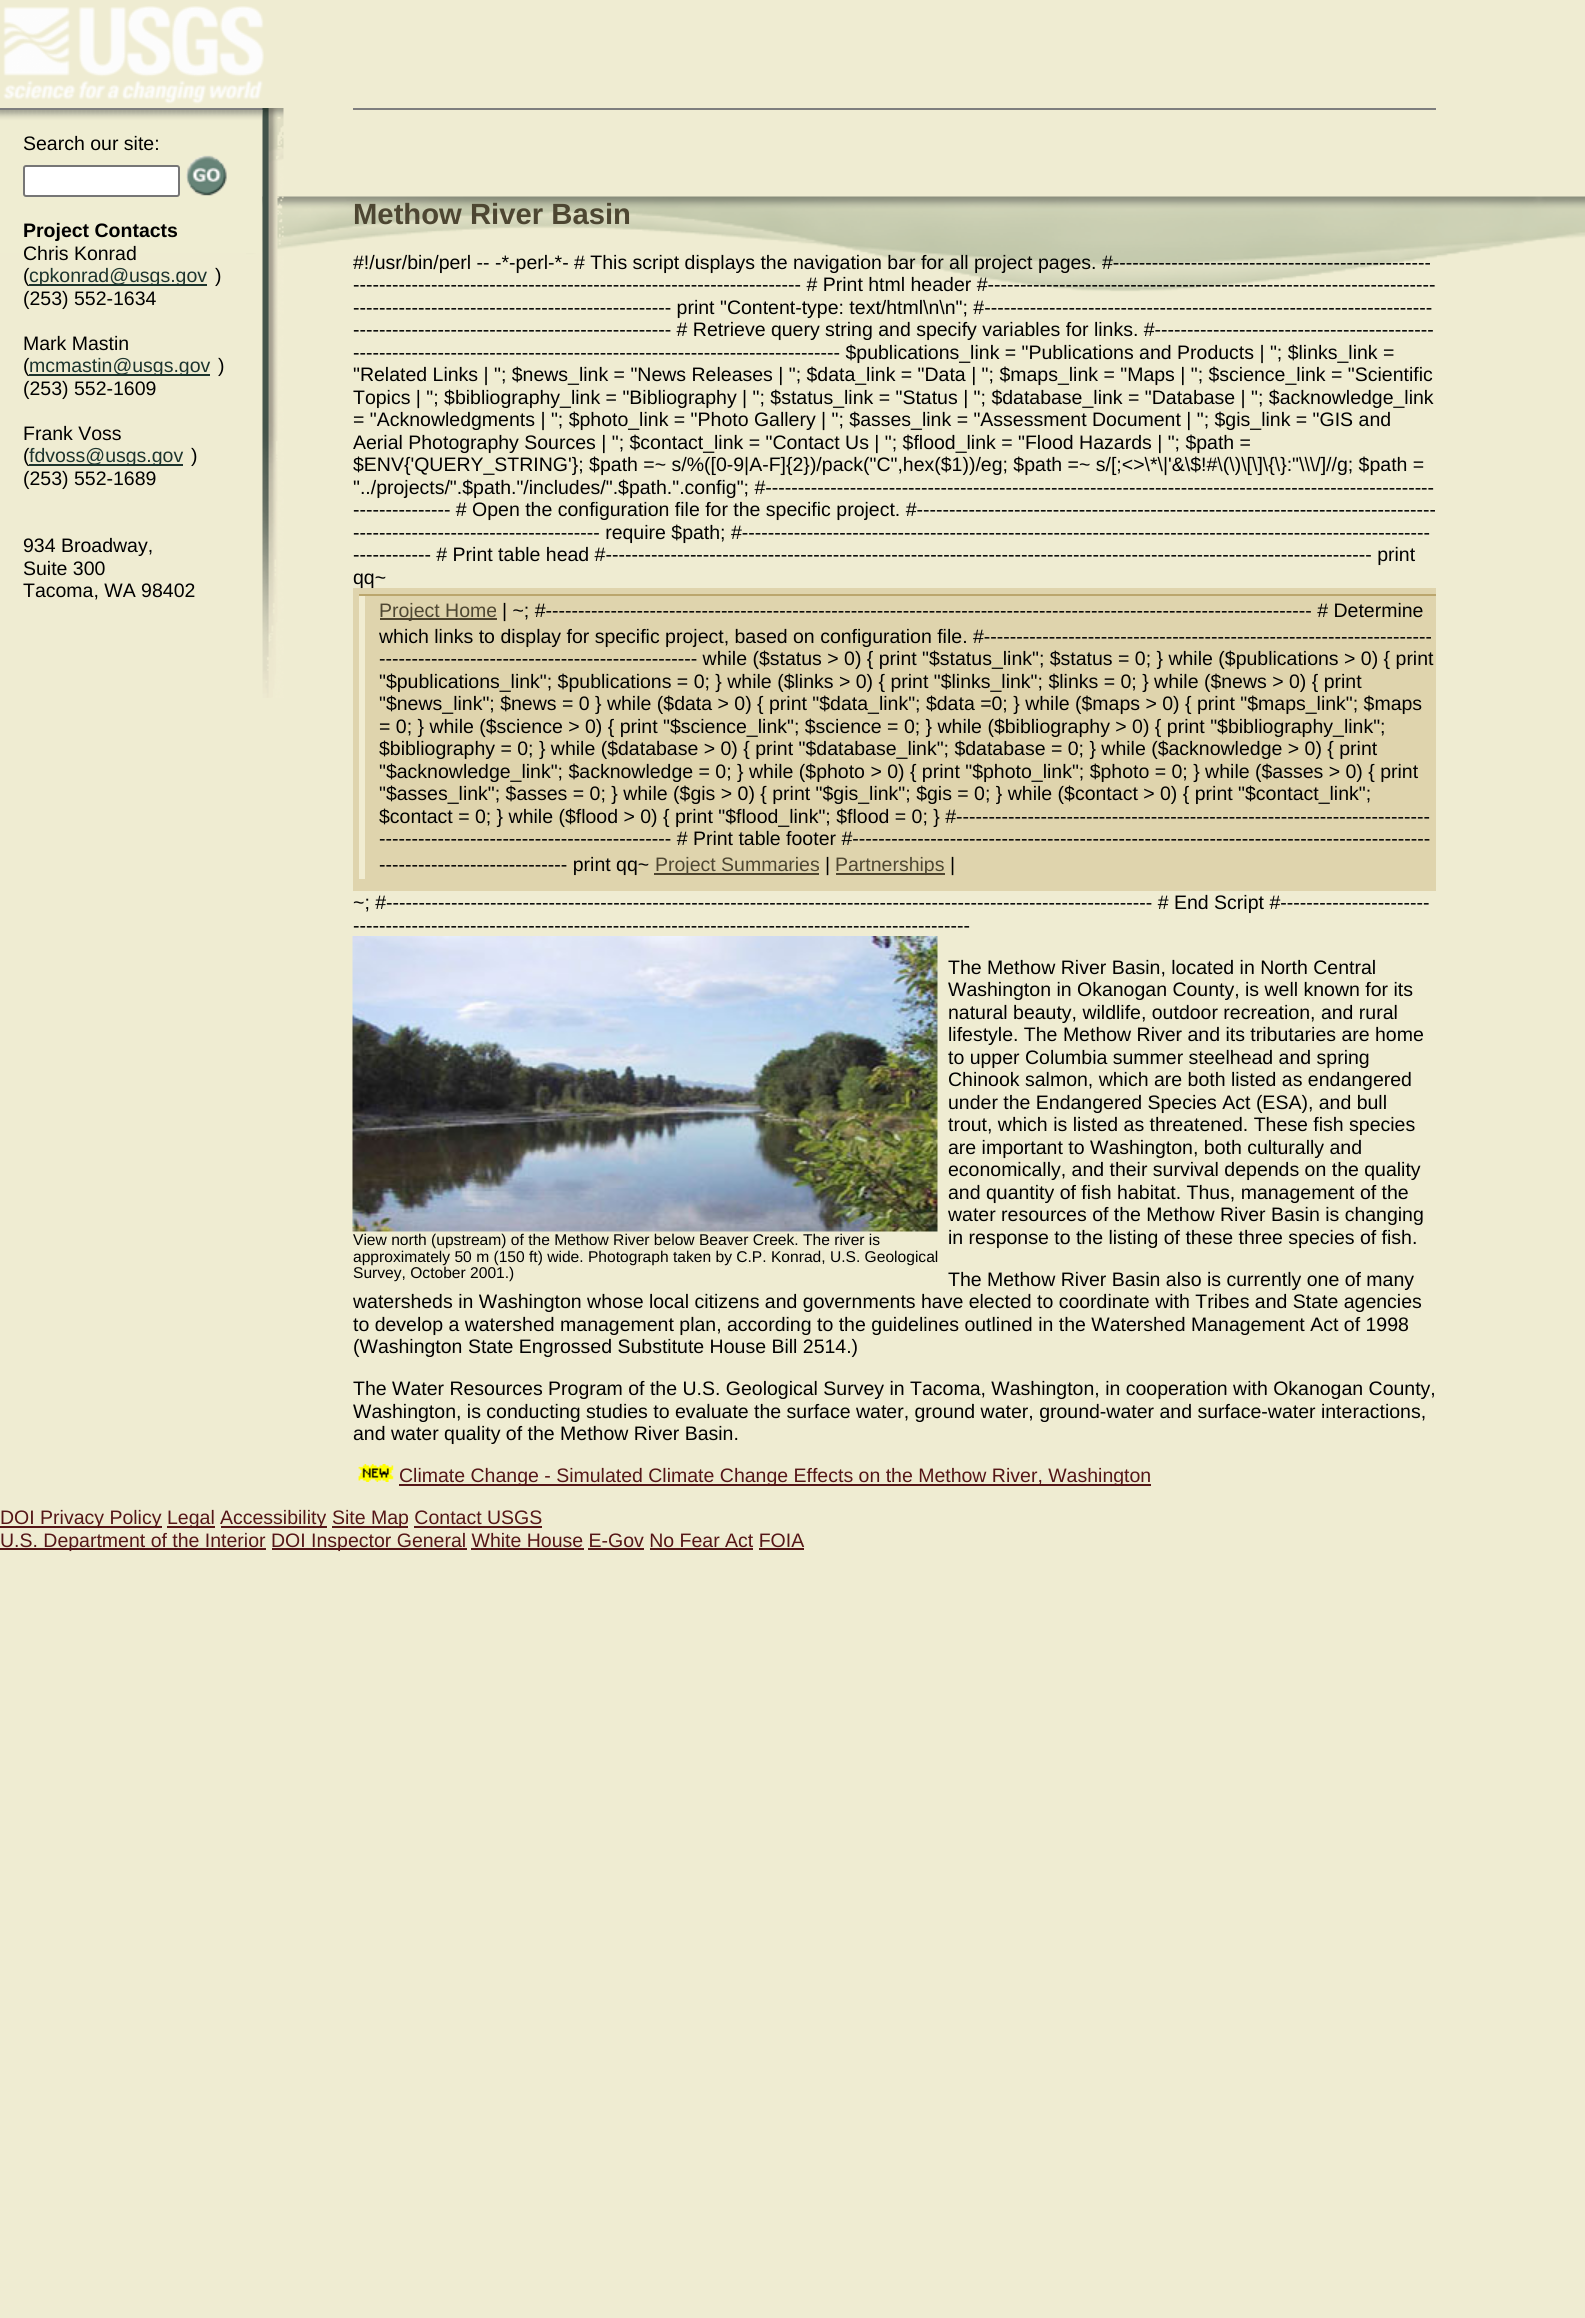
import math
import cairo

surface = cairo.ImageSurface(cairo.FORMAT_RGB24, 1585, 2318)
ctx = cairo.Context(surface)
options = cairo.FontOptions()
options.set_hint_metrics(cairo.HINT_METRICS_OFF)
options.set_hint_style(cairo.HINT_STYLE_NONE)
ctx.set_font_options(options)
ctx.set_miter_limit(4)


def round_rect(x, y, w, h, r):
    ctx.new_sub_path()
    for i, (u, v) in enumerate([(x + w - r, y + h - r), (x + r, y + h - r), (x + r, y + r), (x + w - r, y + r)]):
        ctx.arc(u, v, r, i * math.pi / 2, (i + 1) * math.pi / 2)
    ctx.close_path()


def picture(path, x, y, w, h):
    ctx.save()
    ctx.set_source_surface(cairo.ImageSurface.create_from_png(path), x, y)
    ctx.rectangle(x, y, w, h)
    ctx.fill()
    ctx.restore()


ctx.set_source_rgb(0.937, 0.925, 0.824)
ctx.paint()
picture("img1.png", 246, 196, 1339, 96)
picture("img2.png", 3, 6, 261, 98)
picture("img3.png", 0, 110, 263, 143)
ctx.set_source_rgb(0.494, 0.494, 0.494)
ctx.rectangle(0, 108, 263, 2)
ctx.fill()
ctx.select_font_face("Liberation Sans")
ctx.set_font_size(19.5)
ctx.set_source_rgb(0, 0, 0)
ctx.move_to(23, 150)
ctx.show_text("Search our site:")
ctx.set_source_rgb(1, 1, 1)
round_rect(24, 166, 155, 30, 2)
ctx.fill_preserve()
ctx.set_source_rgb(0.463, 0.463, 0.463)
ctx.stroke()
picture("img4.png", 186, 155, 41, 41)
ctx.select_font_face("Liberation Sans", cairo.FONT_SLANT_NORMAL, cairo.FONT_WEIGHT_BOLD)
ctx.set_source_rgb(0, 0, 0)
ctx.move_to(23, 237)
ctx.show_text("Project Contacts")
ctx.select_font_face("Liberation Sans")
ctx.move_to(23, 260)
ctx.show_text("Chris Konrad")
ctx.move_to(23, 282)
ctx.show_text("(")
ctx.set_source_rgb(0.11, 0.204, 0.176)
ctx.rectangle(29, 284, 178, 2)
ctx.fill()
ctx.move_to(29, 282)
ctx.show_text("cpkonrad@usgs.gov")
ctx.set_source_rgb(0, 0, 0)
ctx.move_to(215, 282)
ctx.show_text(")")
ctx.move_to(23, 305)
ctx.show_text("(253) 552-1634")
ctx.move_to(23, 350)
ctx.show_text("Mark Mastin")
ctx.move_to(23, 372)
ctx.show_text("(")
ctx.set_source_rgb(0.11, 0.204, 0.176)
ctx.rectangle(29, 374, 181, 2)
ctx.fill()
ctx.move_to(29, 372)
ctx.show_text("mcmastin@usgs.gov")
ctx.set_source_rgb(0, 0, 0)
ctx.move_to(218, 372)
ctx.show_text(")")
ctx.move_to(23, 395)
ctx.show_text("(253) 552-1609")
ctx.move_to(23, 440)
ctx.show_text("Frank Voss")
ctx.move_to(23, 462)
ctx.show_text("(")
ctx.set_source_rgb(0.11, 0.204, 0.176)
ctx.rectangle(29, 464, 154, 2)
ctx.fill()
ctx.move_to(29, 462)
ctx.show_text("fdvoss@usgs.gov")
ctx.set_source_rgb(0, 0, 0)
ctx.move_to(191, 462)
ctx.show_text(")")
ctx.move_to(23, 485)
ctx.show_text("(253) 552-1689")
ctx.move_to(23, 552)
ctx.show_text("934 Broadway,")
ctx.move_to(23, 575)
ctx.show_text("Suite 300")
ctx.move_to(23, 597)
ctx.show_text("Tacoma, WA 98402")
picture("img5.png", 262, 108, 22, 590)
ctx.set_source_rgb(0.494, 0.494, 0.494)
ctx.rectangle(353, 108, 1083, 2)
ctx.fill()
ctx.select_font_face("Liberation Sans", cairo.FONT_SLANT_NORMAL, cairo.FONT_WEIGHT_BOLD)
ctx.set_font_size(29.25)
ctx.set_source_rgb(0.302, 0.275, 0.196)
ctx.move_to(353, 224)
ctx.show_text("Methow River Basin")
ctx.select_font_face("Liberation Sans")
ctx.set_font_size(19.5)
ctx.set_source_rgb(0, 0, 0)
ctx.move_to(353, 269)
ctx.show_text("#!/usr/bin/perl -- -*-perl-*- # This script displays the navigation bar for all project pages. #-------------------------------------------------")
ctx.move_to(353, 291)
ctx.show_text("--------------------------------------------------------------------- # Print html header #---------------------------------------------------------------------")
ctx.move_to(353, 314)
ctx.show_text("------------------------------------------------- print \"Content-type: text/html\\n\\n\"; #---------------------------------------------------------------------")
ctx.move_to(353, 336)
ctx.show_text("------------------------------------------------- # Retrieve query string and specify variables for links. #-------------------------------------------")
ctx.move_to(353, 359)
ctx.show_text("--------------------------------------------------------------------------- $publications_link = \"Publications and Products | \"; $links_link =")
ctx.move_to(353, 381)
ctx.show_text("\"Related Links | \"; $news_link = \"News Releases | \"; $data_link = \"Data | \"; $maps_link = \"Maps | \"; $science_link = \"Scientific")
ctx.move_to(353, 404)
ctx.show_text("Topics | \"; $bibliography_link = \"Bibliography | \"; $status_link = \"Status | \"; $database_link = \"Database | \"; $acknowledge_link")
ctx.move_to(353, 426)
ctx.show_text("= \"Acknowledgments | \"; $photo_link = \"Photo Gallery | \"; $asses_link = \"Assessment Document | \"; $gis_link = \"GIS and")
ctx.move_to(353, 449)
ctx.show_text("Aerial Photography Sources | \"; $contact_link = \"Contact Us | \"; $flood_link = \"Flood Hazards | \"; $path =")
ctx.move_to(353, 471)
ctx.show_text("$ENV{'QUERY_STRING'}; $path =~ s/%([0-9|A-F]{2})/pack(\"C\",hex($1))/eg; $path =~ s/[;<>\\*\\|'&\\$!#\\(\\)\\[\\]\\{\\}:\"\\\\\\/]//g; $path =")
ctx.move_to(353, 494)
ctx.show_text("\"../projects/\".$path.\"/includes/\".$path.\".config\"; #-------------------------------------------------------------------------------------------------------")
ctx.move_to(353, 516)
ctx.show_text("--------------- # Open the configuration file for the specific project. #--------------------------------------------------------------------------------")
ctx.move_to(353, 539)
ctx.show_text("-------------------------------------- require $path; #----------------------------------------------------------------------------------------------------------")
ctx.move_to(353, 561)
ctx.show_text("------------ # Print table head #---------------------------------------------------------------------------------------------------------------------- print")
ctx.set_source_rgb(0.875, 0.831, 0.678)
ctx.rectangle(353, 588, 1083, 303)
ctx.fill()
ctx.set_source_rgb(0, 0, 0)
ctx.move_to(353, 584)
ctx.show_text("qq~")
ctx.set_source_rgb(0.733, 0.651, 0.427)
ctx.rectangle(359, 594, 1077, 2)
ctx.fill()
ctx.set_source_rgb(0.945, 0.925, 0.82)
ctx.rectangle(359, 596, 6, 283)
ctx.fill()
ctx.set_source_rgb(0.302, 0.267, 0.18)
ctx.rectangle(380, 618, 117, 2)
ctx.fill()
ctx.set_source_rgb(0.302, 0.275, 0.196)
ctx.move_to(379, 617)
ctx.show_text("Project Home")
ctx.set_source_rgb(0, 0, 0)
ctx.move_to(502, 617)
ctx.show_text("| ~; #---------------------------------------------------------------------------------------------------------------------- # Determine")
ctx.move_to(379, 643)
ctx.show_text("which links to display for specific project, based on configuration file. #---------------------------------------------------------------------")
ctx.move_to(379, 665)
ctx.show_text("------------------------------------------------- while ($status > 0) { print \"$status_link\"; $status = 0; } while ($publications > 0) { print")
ctx.move_to(379, 688)
ctx.show_text("\"$publications_link\"; $publications = 0; } while ($links > 0) { print \"$links_link\"; $links = 0; } while ($news > 0) { print")
ctx.move_to(379, 710)
ctx.show_text("\"$news_link\"; $news = 0 } while ($data > 0) { print \"$data_link\"; $data =0; } while ($maps > 0) { print \"$maps_link\"; $maps")
ctx.move_to(379, 733)
ctx.show_text("= 0; } while ($science > 0) { print \"$science_link\"; $science = 0; } while ($bibliography > 0) { print \"$bibliography_link\";")
ctx.move_to(379, 755)
ctx.show_text("$bibliography = 0; } while ($database > 0) { print \"$database_link\"; $database = 0; } while ($acknowledge > 0) { print")
ctx.move_to(379, 778)
ctx.show_text("\"$acknowledge_link\"; $acknowledge = 0; } while ($photo > 0) { print \"$photo_link\"; $photo = 0; } while ($asses > 0) { print")
ctx.move_to(379, 800)
ctx.show_text("\"$asses_link\"; $asses = 0; } while ($gis > 0) { print \"$gis_link\"; $gis = 0; } while ($contact > 0) { print \"$contact_link\";")
ctx.move_to(379, 823)
ctx.show_text("$contact = 0; } while ($flood > 0) { print \"$flood_link\"; $flood = 0; } #-------------------------------------------------------------------------")
ctx.move_to(379, 845)
ctx.show_text("--------------------------------------------- # Print table footer #-----------------------------------------------------------------------------------------")
ctx.move_to(379, 871)
ctx.show_text("----------------------------- print qq~")
ctx.set_source_rgb(0.302, 0.267, 0.18)
ctx.rectangle(654, 873, 165, 2)
ctx.fill()
ctx.set_source_rgb(0.302, 0.275, 0.196)
ctx.move_to(655, 871)
ctx.show_text("Project Summaries")
ctx.set_source_rgb(0, 0, 0)
ctx.move_to(825, 871)
ctx.show_text("|")
ctx.set_source_rgb(0.302, 0.267, 0.18)
ctx.rectangle(836, 873, 109, 2)
ctx.fill()
ctx.set_source_rgb(0.302, 0.275, 0.196)
ctx.move_to(835, 871)
ctx.show_text("Partnerships")
ctx.set_source_rgb(0, 0, 0)
ctx.move_to(950, 871)
ctx.show_text("|")
ctx.move_to(353, 909)
ctx.show_text("~; #---------------------------------------------------------------------------------------------------------------------- # End Script #-----------------------")
ctx.move_to(353, 932)
ctx.show_text("-----------------------------------------------------------------------------------------------")
ctx.move_to(948, 974)
ctx.show_text("The Methow River Basin, located in North Central")
ctx.move_to(948, 996)
ctx.show_text("Washington in Okanogan County, is well known for its")
ctx.move_to(948, 1019)
ctx.show_text("natural beauty, wildlife, outdoor recreation, and rural")
ctx.move_to(948, 1041)
ctx.show_text("lifestyle. The Methow River and its tributaries are home")
ctx.move_to(948, 1064)
ctx.show_text("to upper Columbia summer steelhead and spring")
ctx.move_to(948, 1086)
ctx.show_text("Chinook salmon, which are both listed as endangered")
ctx.move_to(948, 1109)
ctx.show_text("under the Endangered Species Act (ESA), and bull")
ctx.move_to(948, 1131)
ctx.show_text("trout, which is listed as threatened. These fish species")
ctx.move_to(948, 1154)
ctx.show_text("are important to Washington, both culturally and")
ctx.move_to(948, 1176)
ctx.show_text("economically, and their survival depends on the quality")
ctx.move_to(948, 1199)
ctx.show_text("and quantity of fish habitat. Thus, management of the")
ctx.move_to(948, 1221)
ctx.show_text("water resources of the Methow River Basin is changing")
ctx.move_to(948, 1244)
ctx.show_text("in response to the listing of these three species of fish.")
ctx.move_to(948, 1286)
ctx.show_text("The Methow River Basin also is currently one of many")
ctx.move_to(353, 1308)
ctx.show_text("watersheds in Washington whose local citizens and governments have elected to coordinate with Tribes and State agencies")
ctx.move_to(353, 1331)
ctx.show_text("to develop a watershed management plan, according to the guidelines outlined in the Watershed Management Act of 1998")
ctx.move_to(353, 1353)
ctx.show_text("(Washington State Engrossed Substitute House Bill 2514.)")
ctx.move_to(353, 1395)
ctx.show_text("The Water Resources Program of the U.S. Geological Survey in Tacoma, Washington, in cooperation with Okanogan County,")
ctx.move_to(353, 1418)
ctx.show_text("Washington, is conducting studies to evaluate the surface water, ground water, ground-water and surface-water interactions,")
ctx.move_to(353, 1440)
ctx.show_text("and water quality of the Methow River Basin.")
picture("img6.png", 352, 936, 586, 296)
ctx.set_font_size(15.6)
ctx.move_to(353, 1245)
ctx.show_text("View north (upstream) of the Methow River below Beaver Creek. The river is")
ctx.move_to(353, 1262)
ctx.show_text("approximately 50 m (150 ft) wide. Photograph taken by C.P. Konrad, U.S. Geological")
ctx.move_to(353, 1278)
ctx.show_text("Survey, October 2001.)")
picture("img7.png", 358, 1464, 36, 18)
ctx.set_source_rgb(0.333, 0.086, 0.09)
ctx.rectangle(399, 1484, 752, 2)
ctx.fill()
ctx.set_font_size(19.5)
ctx.move_to(399, 1482)
ctx.show_text("Climate Change - Simulated Climate Change Effects on the Methow River, Washington")
ctx.rectangle(0, 1526, 162, 2)
ctx.fill()
ctx.move_to(0, 1524)
ctx.show_text("DOI Privacy Policy")
ctx.rectangle(167, 1526, 48, 2)
ctx.fill()
ctx.move_to(167, 1524)
ctx.show_text("Legal")
ctx.rectangle(221, 1526, 106, 2)
ctx.fill()
ctx.move_to(220, 1524)
ctx.show_text("Accessibility")
ctx.rectangle(332, 1526, 76, 2)
ctx.fill()
ctx.move_to(332, 1524)
ctx.show_text("Site Map Contact USGS")
ctx.rectangle(414, 1526, 128, 2)
ctx.fill()
ctx.rectangle(0, 1548, 266, 2)
ctx.fill()
ctx.move_to(0, 1547)
ctx.show_text("U.S. Department of the Interior")
ctx.rectangle(272, 1548, 195, 2)
ctx.fill()
ctx.move_to(271, 1547)
ctx.show_text("DOI Inspector General White House E-Gov No Fear Act FOIA")
ctx.rectangle(471, 1548, 113, 2)
ctx.fill()
ctx.rectangle(588, 1548, 56, 2)
ctx.fill()
ctx.rectangle(650, 1548, 103, 2)
ctx.fill()
ctx.rectangle(759, 1548, 45, 2)
ctx.fill()
surface.write_to_png("page.png")
